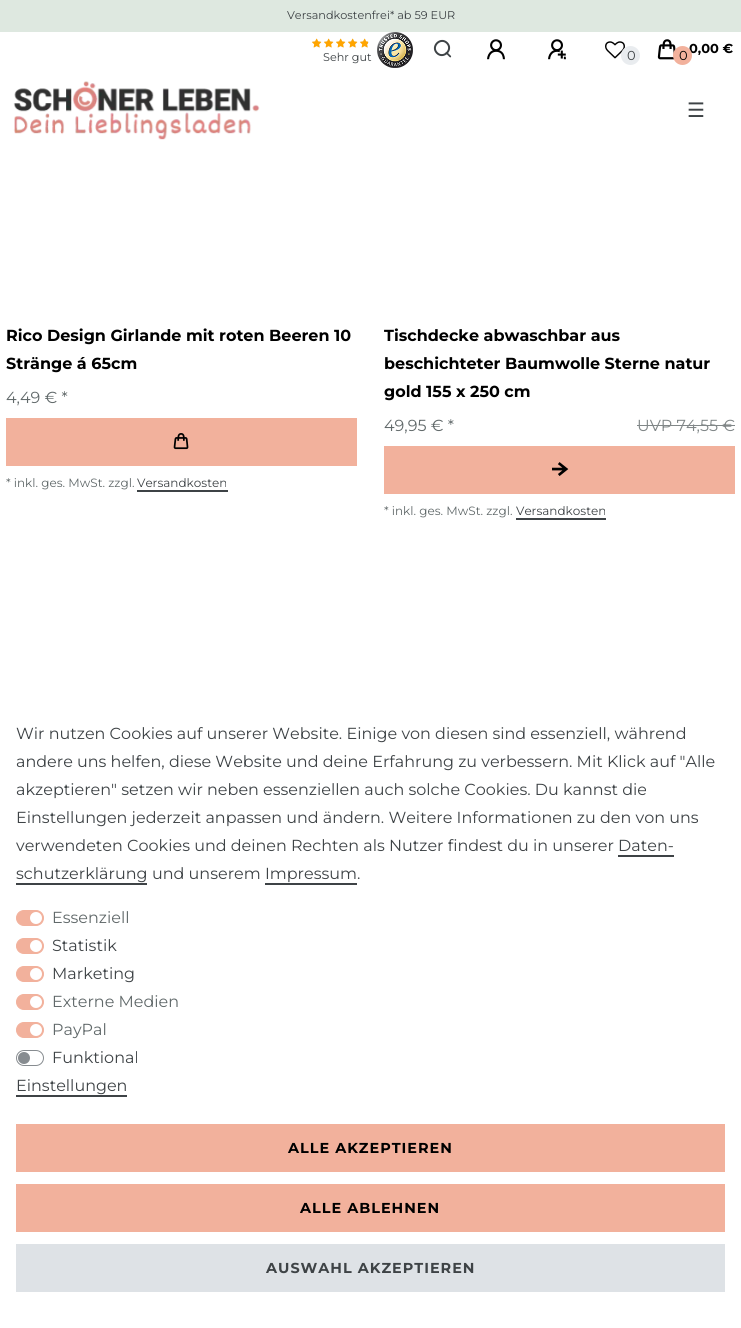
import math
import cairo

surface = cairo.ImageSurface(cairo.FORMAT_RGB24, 741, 1328)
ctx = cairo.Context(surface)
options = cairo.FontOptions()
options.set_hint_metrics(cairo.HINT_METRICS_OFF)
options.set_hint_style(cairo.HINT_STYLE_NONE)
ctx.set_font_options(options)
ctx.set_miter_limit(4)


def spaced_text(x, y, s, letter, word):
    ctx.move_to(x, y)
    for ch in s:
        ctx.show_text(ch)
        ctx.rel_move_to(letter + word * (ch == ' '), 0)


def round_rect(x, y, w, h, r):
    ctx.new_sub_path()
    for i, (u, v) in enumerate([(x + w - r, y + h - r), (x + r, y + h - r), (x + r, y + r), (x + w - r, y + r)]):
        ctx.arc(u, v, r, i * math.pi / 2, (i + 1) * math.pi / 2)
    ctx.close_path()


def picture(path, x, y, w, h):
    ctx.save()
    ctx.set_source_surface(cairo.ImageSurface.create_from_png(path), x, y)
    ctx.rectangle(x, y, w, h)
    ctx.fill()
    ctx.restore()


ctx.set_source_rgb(1, 1, 1)
ctx.paint()
ctx.set_source_rgb(0.871, 0.91, 0.878)
ctx.rectangle(0, 0, 741, 32)
ctx.fill()
ctx.select_font_face("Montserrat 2 Thin")
ctx.set_font_size(11.25)
ctx.set_source_rgb(0.243, 0.263, 0.275)
ctx.move_to(287, 19)
ctx.show_text("Versandkostenfrei* ab 59 EUR")
picture("img3.png", 312, 39, 9, 9)
picture("img1.png", 312, 38, 10, 10)
picture("img3.png", 324, 39, 9, 9)
picture("img1.png", 324, 38, 10, 10)
picture("img3.png", 336, 39, 9, 9)
picture("img1.png", 336, 38, 10, 10)
picture("img3.png", 348, 39, 9, 9)
picture("img1.png", 348, 38, 10, 10)
picture("img3.png", 360, 39, 9, 9)
picture("img2.png", 360, 38, 8, 10)
ctx.move_to(323, 61)
ctx.show_text("Sehr gut")
picture("img4.png", 377, 32, 36, 36)
ctx.new_path()
ctx.move_to(449.5, 57)
ctx.line_to(447, 54.5)
ctx.curve_to(446.5, 54, 445, 53, 446, 52)
ctx.line_to(447, 52)
ctx.line_to(451, 56)
ctx.curve_to(451.5, 57, 450.5, 58, 449.5, 57)
ctx.close_path()
ctx.fill()
ctx.new_path()
ctx.move_to(437, 53)
ctx.curve_to(430.5, 46.5, 440.5, 36.5, 447, 43)
ctx.curve_to(453.5, 49.5, 443.5, 59.5, 437, 53)
ctx.close_path()
ctx.stroke()
picture("img5.png", 487, 39, 18, 21)
picture("img6.png", 548, 39, 18, 21)
picture("img7.png", 605, 41, 20, 18)
ctx.set_source_rgb(0.914, 0.925, 0.937)
ctx.arc(630.5, 55.5, 9.5, 0, 2 * math.pi)
ctx.fill()
ctx.set_font_size(13)
ctx.set_source_rgb(0.243, 0.263, 0.275)
ctx.move_to(627, 60)
ctx.show_text("0")
picture("img8.png", 657, 39, 19, 21)
ctx.select_font_face("Montserrat Thin")
ctx.set_source_rgb(0, 0, 0)
ctx.move_to(689, 53)
ctx.show_text("0,00 €")
ctx.set_source_rgb(0.949, 0.694, 0.612)
ctx.new_path()
ctx.arc(682.5, 55.5, 9.5, 0, 2 * math.pi)
ctx.fill()
ctx.select_font_face("Montserrat 2 Thin")
ctx.set_source_rgb(0, 0, 0)
ctx.move_to(679, 60)
ctx.show_text("0")
picture("img9.png", 13, 81, 247, 59)
ctx.select_font_face("DejaVu Sans")
ctx.set_font_size(20)
ctx.set_source_rgb(0.243, 0.263, 0.275)
ctx.move_to(687, 117)
ctx.show_text("☰")
ctx.select_font_face("Montserrat Thin")
ctx.set_font_size(16)
ctx.set_source_rgb(0, 0, 0)
ctx.move_to(6, 341)
ctx.show_text("Rico Design Girlande mit roten Beeren 10")
ctx.move_to(6, 369)
ctx.show_text("Stränge á 65cm")
ctx.select_font_face("Montserrat 2 Thin")
ctx.set_source_rgb(0.38, 0.412, 0.416)
ctx.move_to(6, 403)
ctx.show_text("4,49 € *")
ctx.set_source_rgb(0.949, 0.694, 0.612)
ctx.rectangle(6, 418, 351, 48)
ctx.fill()
picture("img10.png", 173, 433, 16, 17)
ctx.set_font_size(12)
ctx.set_source_rgb(0.38, 0.412, 0.416)
ctx.move_to(6, 487)
ctx.show_text("* inkl. ges. MwSt. zzgl.")
ctx.set_source_rgb(0.243, 0.263, 0.275)
ctx.move_to(137, 487)
ctx.show_text("Versandkosten")
ctx.rectangle(137, 490, 91, 2)
ctx.fill()
ctx.select_font_face("Montserrat Thin")
ctx.set_font_size(16)
ctx.set_source_rgb(0, 0, 0)
ctx.move_to(384, 341)
ctx.show_text("Tischdecke abwaschbar aus")
ctx.move_to(384, 369)
ctx.show_text("beschichteter Baumwolle Sterne natur")
ctx.move_to(384, 397)
ctx.show_text("gold 155 x 250 cm")
ctx.select_font_face("Montserrat 2 Thin")
ctx.set_source_rgb(0.38, 0.412, 0.416)
ctx.move_to(384, 431)
ctx.show_text("49,95 € *")
ctx.set_source_rgb(0.506, 0.529, 0.533)
ctx.move_to(637, 431)
ctx.show_text("UVP 74,55 €")
ctx.rectangle(637, 425, 98, 1)
ctx.fill()
ctx.set_source_rgb(0.949, 0.694, 0.612)
ctx.rectangle(384, 446, 351, 48)
ctx.fill()
picture("img11.png", 552, 462, 17, 14)
ctx.set_font_size(12)
ctx.set_source_rgb(0.38, 0.412, 0.416)
ctx.move_to(384, 515)
ctx.show_text("* inkl. ges. MwSt. zzgl.")
ctx.set_source_rgb(0.243, 0.263, 0.275)
ctx.move_to(516, 515)
ctx.show_text("Versandkosten")
ctx.rectangle(516, 518, 90, 2)
ctx.fill()
ctx.set_font_size(16)
ctx.move_to(16, 739)
ctx.show_text("Wir nutzen Cookies auf unserer Website. Einige von diesen sind essenziell, während")
ctx.move_to(16, 767)
ctx.show_text("andere uns helfen, diese Website und deine Erfahrung zu verbessern. Mit Klick auf \"Alle")
ctx.move_to(16, 795)
ctx.show_text("akzeptieren\" setzen wir neben essenziellen auch solche Cookies. Du kannst die")
ctx.move_to(16, 823)
ctx.show_text("Einstellungen jederzeit anpassen und ändern. Weitere Informationen zu den von uns")
ctx.move_to(16, 851)
ctx.show_text("verwendeten Cookies und deinen Rechten als Nutzer findest du in unserer Daten-")
ctx.move_to(16, 879)
ctx.show_text("schutzerklärung")
ctx.rectangle(618, 855, 56, 2)
ctx.fill()
ctx.rectangle(16, 883, 131, 2)
ctx.fill()
ctx.move_to(152, 879)
ctx.show_text("und unserem Impressum")
ctx.move_to(357, 879)
ctx.show_text(".")
ctx.rectangle(265, 883, 92, 2)
ctx.fill()
ctx.set_source_rgb(0.949, 0.694, 0.612)
round_rect(16.5, 910.5, 27, 15, 7.5)
ctx.fill_preserve()
ctx.set_line_width(1)
ctx.stroke()
ctx.set_source_rgb(0.38, 0.412, 0.416)
ctx.move_to(52, 923)
ctx.show_text("Essenziell")
ctx.set_source_rgb(1, 1, 1)
ctx.new_path()
ctx.arc(36, 918, 6, 0, 2 * math.pi)
ctx.fill()
ctx.set_source_rgb(0.949, 0.694, 0.612)
round_rect(16.5, 938.5, 27, 15, 7.5)
ctx.fill_preserve()
ctx.stroke()
ctx.set_source_rgb(0.243, 0.263, 0.275)
ctx.move_to(52, 951)
ctx.show_text("Statistik")
ctx.set_source_rgb(1, 1, 1)
ctx.new_path()
ctx.arc(36, 946, 6, 0, 2 * math.pi)
ctx.fill()
ctx.set_source_rgb(0.949, 0.694, 0.612)
round_rect(16.5, 966.5, 27, 15, 7.5)
ctx.fill_preserve()
ctx.stroke()
ctx.set_source_rgb(0.243, 0.263, 0.275)
ctx.move_to(52, 979)
ctx.show_text("Marketing")
ctx.set_source_rgb(1, 1, 1)
ctx.new_path()
ctx.arc(36, 974, 6, 0, 2 * math.pi)
ctx.fill()
ctx.set_source_rgb(0.949, 0.694, 0.612)
round_rect(16.5, 994.5, 27, 15, 7.5)
ctx.fill_preserve()
ctx.stroke()
ctx.set_source_rgb(0.38, 0.412, 0.416)
ctx.move_to(52, 1007)
ctx.show_text("Externe Medien")
ctx.set_source_rgb(1, 1, 1)
ctx.new_path()
ctx.arc(36, 1002, 6, 0, 2 * math.pi)
ctx.fill()
ctx.set_source_rgb(0.949, 0.694, 0.612)
round_rect(16.5, 1022.5, 27, 15, 7.5)
ctx.fill_preserve()
ctx.stroke()
ctx.set_source_rgb(0.38, 0.412, 0.416)
ctx.move_to(52, 1035)
ctx.show_text("PayPal")
ctx.set_source_rgb(1, 1, 1)
ctx.new_path()
ctx.arc(36, 1030, 6, 0, 2 * math.pi)
ctx.fill()
round_rect(16.5, 1050.5, 27, 15, 7.5)
ctx.set_source_rgb(0.529, 0.549, 0.565)
ctx.stroke()
ctx.set_source_rgb(0.243, 0.263, 0.275)
ctx.move_to(52, 1063)
ctx.show_text("Funktional")
ctx.set_source_rgb(0.529, 0.549, 0.565)
ctx.new_path()
ctx.arc(24, 1058, 6, 0, 2 * math.pi)
ctx.fill()
ctx.set_source_rgb(0.243, 0.263, 0.275)
ctx.move_to(16, 1091)
ctx.show_text("Einstellungen")
ctx.rectangle(16, 1095, 111, 2)
ctx.fill()
ctx.set_source_rgb(0.949, 0.694, 0.612)
ctx.rectangle(16, 1124, 709, 48)
ctx.fill()
ctx.select_font_face("Montserrat Thin")
ctx.set_font_size(14.4)
ctx.set_source_rgb(0, 0, 0)
spaced_text(288, 1153, "ALLE AKZEPTIEREN", 1, 0)
ctx.set_source_rgb(0.949, 0.694, 0.612)
ctx.rectangle(16, 1184, 709, 48)
ctx.fill()
ctx.set_source_rgb(0, 0, 0)
spaced_text(300, 1213, "ALLE ABLEHNEN", 1, 0)
ctx.set_source_rgb(0.871, 0.886, 0.902)
ctx.rectangle(16, 1244, 709, 48)
ctx.fill()
ctx.set_source_rgb(0.243, 0.263, 0.275)
spaced_text(266, 1273, "AUSWAHL AKZEPTIEREN", 1, 0)
surface.write_to_png("page.png")
